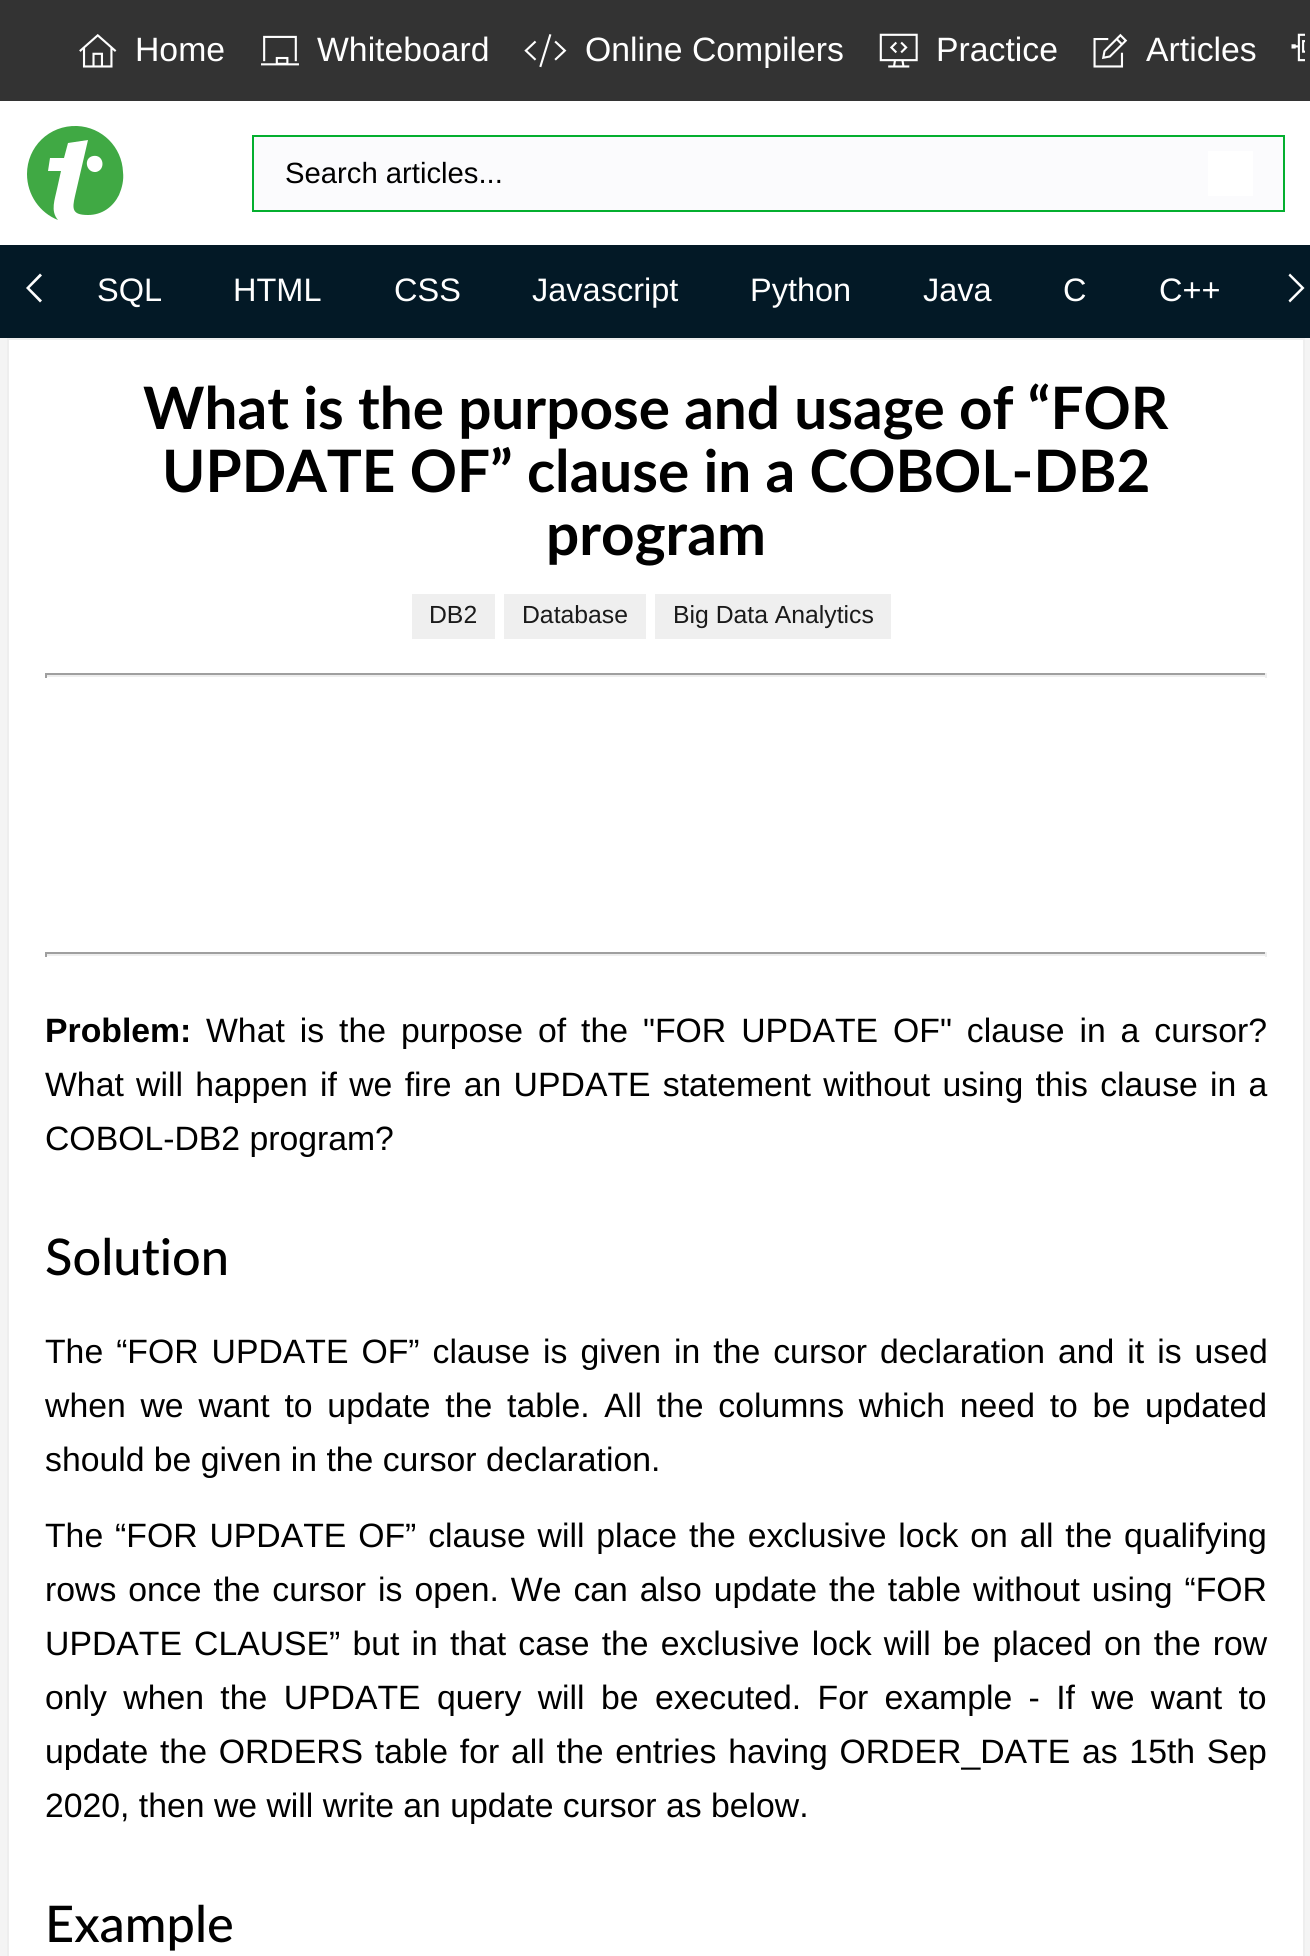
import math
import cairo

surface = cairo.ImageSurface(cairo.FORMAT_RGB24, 1310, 1956)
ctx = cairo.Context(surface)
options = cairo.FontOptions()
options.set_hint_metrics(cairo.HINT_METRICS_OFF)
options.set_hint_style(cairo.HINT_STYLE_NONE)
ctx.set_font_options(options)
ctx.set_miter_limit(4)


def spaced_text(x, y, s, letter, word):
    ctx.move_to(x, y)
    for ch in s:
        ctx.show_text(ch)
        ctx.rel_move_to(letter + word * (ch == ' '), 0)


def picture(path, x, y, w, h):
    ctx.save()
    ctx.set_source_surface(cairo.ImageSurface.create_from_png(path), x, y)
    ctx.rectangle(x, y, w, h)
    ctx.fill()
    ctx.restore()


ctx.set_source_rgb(0.012, 0.098, 0.149)
ctx.paint()
ctx.set_source_rgb(0.2, 0.2, 0.2)
ctx.rectangle(0, 0, 1310, 101)
ctx.fill()
picture("img1.png", 79, 34, 38, 34)
ctx.select_font_face("Liberation Sans")
ctx.set_font_size(33.75)
ctx.set_source_rgb(1, 1, 1)
ctx.move_to(135, 61)
ctx.show_text("Home")
picture("img2.png", 261, 35, 38, 31)
ctx.move_to(317, 61)
ctx.show_text("Whiteboard")
picture("img3.png", 524, 34, 43, 34)
ctx.move_to(585, 61)
ctx.show_text("Online Compilers")
picture("img4.png", 879, 33, 39, 35)
ctx.move_to(936, 61)
ctx.show_text("Practice")
picture("img5.png", 1093, 33, 35, 35)
ctx.move_to(1146, 61)
ctx.show_text("Articles")
picture("img6.png", 1291, 33, 14, 29)
ctx.rectangle(0, 101, 1310, 144)
ctx.fill()
ctx.set_source_rgb(0.251, 0.663, 0.267)
ctx.new_path()
ctx.move_to(88, 215)
ctx.curve_to(102, 215, 113, 207, 119, 195)
ctx.curve_to(122, 188, 124, 180, 123, 172)
ctx.curve_to(122, 147, 102, 127, 77, 126)
ctx.curve_to(49, 125, 27, 147, 27, 174)
ctx.curve_to(27, 195, 40, 213, 58, 220)
ctx.curve_to(50, 211, 55, 199, 57, 189)
ctx.line_to(61, 171)
ctx.line_to(48, 171)
ctx.line_to(50, 158)
ctx.line_to(64, 158)
ctx.line_to(68, 143)
ctx.line_to(88, 140)
ctx.line_to(75, 196)
ctx.curve_to(72, 209, 72, 215, 88, 215)
ctx.close_path()
ctx.move_to(93, 156)
ctx.curve_to(104, 154, 106, 170, 96, 172)
ctx.curve_to(86, 173, 83, 158, 93, 156)
ctx.close_path()
ctx.fill()
ctx.set_source_rgb(0.984, 0.984, 0.992)
ctx.rectangle(253, 136, 1031, 75)
ctx.fill_preserve()
ctx.set_source_rgb(0.016, 0.686, 0.184)
ctx.stroke()
ctx.set_font_size(29.25)
ctx.set_source_rgb(0, 0, 0)
ctx.move_to(285, 183)
ctx.show_text("Search articles...")
ctx.set_source_rgb(1, 1, 1)
ctx.rectangle(1208, 151, 45, 45)
ctx.fill()
ctx.new_path()
ctx.move_to(26, 288)
ctx.line_to(40, 273.5)
ctx.line_to(42, 275.5)
ctx.line_to(29.5, 288)
ctx.line_to(42, 300.5)
ctx.line_to(40, 302.5)
ctx.close_path()
ctx.fill()
ctx.set_font_size(32.5)
ctx.move_to(97, 301)
ctx.show_text("SQL")
ctx.move_to(233, 301)
ctx.show_text("HTML")
ctx.move_to(394, 301)
ctx.show_text("CSS")
ctx.move_to(532, 301)
ctx.show_text("Javascript")
ctx.move_to(750, 301)
ctx.show_text("Python")
ctx.move_to(923, 301)
ctx.show_text("Java")
ctx.move_to(1063, 301)
ctx.show_text("C")
ctx.move_to(1159, 301)
ctx.show_text("C++")
ctx.new_path()
ctx.move_to(1304.5, 288)
ctx.line_to(1290, 302.5)
ctx.line_to(1288.5, 300.5)
ctx.line_to(1301, 288)
ctx.line_to(1288.5, 275.5)
ctx.line_to(1290, 273.5)
ctx.close_path()
ctx.fill()
ctx.set_source_rgb(0.957, 0.957, 0.957)
ctx.rectangle(0, 338, 1310, 1618)
ctx.fill()
ctx.set_source_rgb(1, 1, 1)
ctx.rectangle(8, 339, 1296, 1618)
ctx.fill_preserve()
ctx.set_source_rgb(0.933, 0.933, 0.933)
ctx.stroke()
ctx.select_font_face("Lato", cairo.FONT_SLANT_NORMAL, cairo.FONT_WEIGHT_BOLD)
ctx.set_font_size(58.5)
ctx.set_source_rgb(0, 0, 0)
ctx.move_to(143, 429)
ctx.show_text("What is the purpose and usage of “FOR")
ctx.move_to(162, 492)
ctx.show_text("UPDATE OF” clause in a COBOL-DB2")
ctx.move_to(546, 555)
ctx.show_text("program")
ctx.set_source_rgb(0.937, 0.937, 0.937)
ctx.rectangle(412, 594, 83, 45)
ctx.fill()
ctx.select_font_face("Liberation Sans")
ctx.set_font_size(24.75)
ctx.set_source_rgb(0.102, 0.102, 0.102)
ctx.move_to(429, 623)
ctx.show_text("DB2")
ctx.set_source_rgb(0.937, 0.937, 0.937)
ctx.rectangle(504, 594, 142, 45)
ctx.fill()
ctx.set_source_rgb(0.102, 0.102, 0.102)
ctx.move_to(522, 623)
ctx.show_text("Database")
ctx.set_source_rgb(0.937, 0.937, 0.937)
ctx.rectangle(655, 594, 236, 45)
ctx.fill()
ctx.set_source_rgb(0.102, 0.102, 0.102)
ctx.move_to(673, 623)
ctx.show_text("Big Data Analytics")
ctx.set_source_rgb(0.624, 0.624, 0.624)
ctx.rectangle(45, 673, 1222, 2)
ctx.fill()
ctx.set_source_rgb(0.933, 0.933, 0.933)
ctx.rectangle(1265, 673, 2, 5)
ctx.fill()
ctx.rectangle(45, 675, 1222, 2)
ctx.fill()
ctx.set_source_rgb(0.624, 0.624, 0.624)
ctx.rectangle(45, 673, 2, 5)
ctx.fill()
ctx.rectangle(45, 952, 1222, 2)
ctx.fill()
ctx.set_source_rgb(0.933, 0.933, 0.933)
ctx.rectangle(1265, 952, 2, 5)
ctx.fill()
ctx.rectangle(45, 954, 1222, 2)
ctx.fill()
ctx.set_source_rgb(0.624, 0.624, 0.624)
ctx.rectangle(45, 952, 2, 5)
ctx.fill()
ctx.select_font_face("Liberation Sans", cairo.FONT_SLANT_NORMAL, cairo.FONT_WEIGHT_BOLD)
ctx.set_font_size(33.75)
ctx.set_source_rgb(0, 0, 0)
ctx.move_to(45, 1042)
ctx.show_text("Problem:")
ctx.select_font_face("Liberation Sans")
spaced_text(206, 1042, "What is the purpose of the \"FOR UPDATE OF\" clause in a cursor?", 0, 5.6)
spaced_text(45, 1096, "What will happen if we fire an UPDATE statement without using this clause in a", 0, 2.9)
ctx.move_to(45, 1150)
ctx.show_text("COBOL-DB2 program?")
ctx.select_font_face("Lato Medium")
ctx.set_font_size(50.5)
ctx.move_to(45, 1275)
ctx.show_text("Solution")
ctx.select_font_face("Liberation Sans")
ctx.set_font_size(33.75)
spaced_text(45, 1363, "The “FOR UPDATE OF” clause is given in the cursor declaration and it is used", 0, 3.6)
spaced_text(45, 1417, "when we want to update the table. All the columns which need to be updated", 0, 5.4)
ctx.move_to(45, 1471)
ctx.show_text("should be given in the cursor declaration.")
spaced_text(45, 1547, "The “FOR UPDATE OF” clause will place the exclusive lock on all the qualifying", 0, 2.5)
spaced_text(45, 1601, "rows once the cursor is open. We can also update the table without using “FOR", 0, 2.6)
spaced_text(45, 1655, "UPDATE CLAUSE” but in that case the exclusive lock will be placed on the row", 0, 2.75)
spaced_text(45, 1709, "only when the UPDATE query will be executed. For example - If we want to", 0, 7)
spaced_text(45, 1763, "update the ORDERS table for all the entries having ORDER_DATE as 15th Sep", 0, 2.4)
ctx.move_to(45, 1817)
ctx.show_text("2020, then we will write an update cursor as below.")
ctx.select_font_face("Lato Medium")
ctx.set_font_size(50.5)
ctx.move_to(45, 1942)
ctx.show_text("Example")
surface.write_to_png("page.png")
